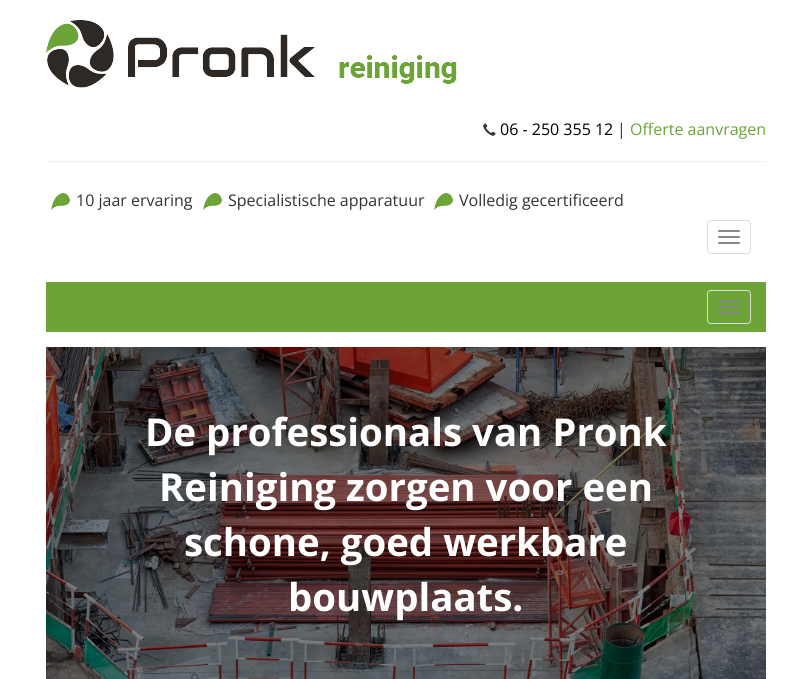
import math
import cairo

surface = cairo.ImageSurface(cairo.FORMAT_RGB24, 812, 679)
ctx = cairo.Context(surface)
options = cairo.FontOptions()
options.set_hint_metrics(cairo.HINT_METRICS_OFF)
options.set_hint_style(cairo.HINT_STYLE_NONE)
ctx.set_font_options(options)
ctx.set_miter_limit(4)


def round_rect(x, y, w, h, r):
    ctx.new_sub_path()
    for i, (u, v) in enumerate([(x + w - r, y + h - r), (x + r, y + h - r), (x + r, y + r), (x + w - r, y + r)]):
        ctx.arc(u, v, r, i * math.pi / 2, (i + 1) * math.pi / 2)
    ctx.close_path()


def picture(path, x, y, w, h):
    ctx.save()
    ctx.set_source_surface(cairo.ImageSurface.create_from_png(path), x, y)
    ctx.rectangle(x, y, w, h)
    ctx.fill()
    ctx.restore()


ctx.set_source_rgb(1, 1, 1)
ctx.paint()
picture("img1.png", 46, 20, 411, 68)
picture("img2.png", 483, 123, 13, 13)
ctx.select_font_face("Open Sans")
ctx.set_font_size(16)
ctx.set_source_rgb(0, 0, 0)
ctx.move_to(500, 135)
ctx.show_text("06 - 250 355 12")
ctx.set_source_rgb(0.2, 0.2, 0.2)
ctx.move_to(617, 135)
ctx.show_text("|")
ctx.set_source_rgb(0.424, 0.643, 0.216)
ctx.move_to(630, 135)
ctx.show_text("Offerte aanvragen")
ctx.set_source_rgb(0.933, 0.933, 0.933)
ctx.rectangle(46, 161, 720, 1)
ctx.fill()
picture("img3.png", 51, 193, 19, 17)
ctx.set_source_rgb(0.2, 0.2, 0.2)
ctx.move_to(76, 206)
ctx.show_text("10 jaar ervaring")
picture("img3.png", 203, 193, 19, 17)
ctx.move_to(228, 206)
ctx.show_text("Specialistische apparatuur")
picture("img3.png", 434, 193, 19, 17)
ctx.move_to(459, 206)
ctx.show_text("Volledig gecertificeerd")
round_rect(707.5, 220.5, 43, 33, 3.5)
ctx.set_source_rgb(0.867, 0.867, 0.867)
ctx.set_line_width(1)
ctx.stroke()
ctx.set_source_rgb(0.533, 0.533, 0.533)
round_rect(718, 230, 22, 2, 1)
ctx.fill()
round_rect(718, 236, 22, 2, 1)
ctx.fill()
round_rect(718, 242, 22, 2, 1)
ctx.fill()
ctx.set_source_rgb(0.424, 0.643, 0.216)
ctx.rectangle(46, 282, 720, 50)
ctx.fill()
round_rect(707.5, 290.5, 43, 33, 3.5)
ctx.set_source_rgb(0.867, 0.867, 0.867)
ctx.stroke()
ctx.set_source_rgb(0.533, 0.533, 0.533)
round_rect(718, 300, 22, 2, 1)
ctx.fill()
round_rect(718, 306, 22, 2, 1)
ctx.fill()
round_rect(718, 312, 22, 2, 1)
ctx.fill()
picture("img4.png", 46, 347, 720, 332)
ctx.select_font_face("Open Sans", cairo.FONT_SLANT_NORMAL, cairo.FONT_WEIGHT_BOLD)
ctx.set_font_size(38.4)
ctx.set_source_rgb(1, 1, 1)
ctx.move_to(145, 446)
ctx.show_text("De professionals van Pronk")
ctx.move_to(159, 501)
ctx.show_text("Reiniging zorgen voor een")
ctx.move_to(184, 556)
ctx.show_text("schone, goed werkbare")
ctx.move_to(288, 611)
ctx.show_text("bouwplaats.")
surface.write_to_png("page.png")
